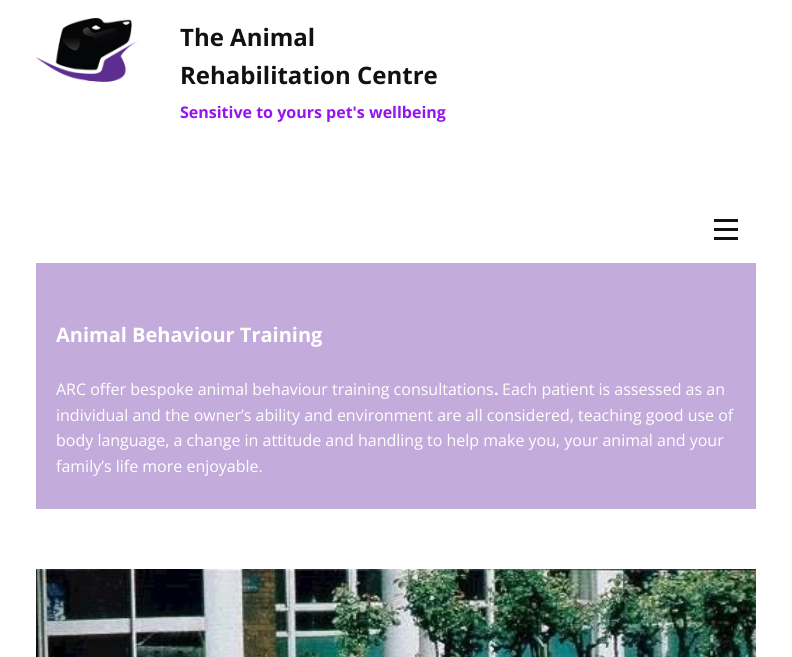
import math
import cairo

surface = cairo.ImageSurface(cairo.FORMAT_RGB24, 792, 657)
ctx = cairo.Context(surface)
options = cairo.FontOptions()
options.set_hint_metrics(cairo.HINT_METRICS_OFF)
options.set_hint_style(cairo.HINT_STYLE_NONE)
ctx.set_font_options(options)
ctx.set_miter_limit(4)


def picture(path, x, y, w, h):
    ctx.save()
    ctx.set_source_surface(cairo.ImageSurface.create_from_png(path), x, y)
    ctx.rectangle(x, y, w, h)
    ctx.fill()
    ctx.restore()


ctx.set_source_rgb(1, 1, 1)
ctx.paint()
picture("img1.png", 36, 18, 102, 64)
ctx.select_font_face("Open Sans", cairo.FONT_SLANT_NORMAL, cairo.FONT_WEIGHT_BOLD)
ctx.set_font_size(24)
ctx.set_source_rgb(0.067, 0.067, 0.067)
ctx.move_to(180, 46)
ctx.show_text("The Animal")
ctx.move_to(180, 84)
ctx.show_text("Rehabilitation Centre")
ctx.set_font_size(16)
ctx.set_source_rgb(0.588, 0.082, 0.941)
ctx.move_to(180, 118)
ctx.show_text("Sensitive to yours pet's wellbeing")
ctx.set_source_rgb(0.067, 0.067, 0.067)
ctx.rectangle(714, 219, 24, 3)
ctx.fill()
ctx.rectangle(714, 228, 24, 3)
ctx.fill()
ctx.rectangle(714, 237, 24, 3)
ctx.fill()
ctx.set_source_rgb(0.765, 0.671, 0.859)
ctx.rectangle(36, 263, 720, 246)
ctx.fill()
ctx.set_font_size(20)
ctx.set_source_rgb(1, 1, 1)
ctx.move_to(56, 342)
ctx.show_text("Animal Behaviour Training")
ctx.select_font_face("Open Sans")
ctx.set_font_size(16)
ctx.move_to(56, 395)
ctx.show_text("ARC offer bespoke animal behaviour training consultations")
ctx.select_font_face("Open Sans", cairo.FONT_SLANT_NORMAL, cairo.FONT_WEIGHT_BOLD)
ctx.move_to(494, 395)
ctx.show_text(".")
ctx.select_font_face("Open Sans")
ctx.move_to(502, 395)
ctx.show_text("Each patient is assessed as an")
ctx.move_to(56, 421)
ctx.show_text("individual and the owner’s ability and environment are all considered, teaching good use of")
ctx.move_to(56, 446)
ctx.show_text("body language, a change in attitude and handling to help make you, your animal and your")
ctx.move_to(56, 472)
ctx.show_text("family’s life more enjoyable.")
picture("img2.png", 36, 569, 720, 88)
surface.write_to_png("page.png")
